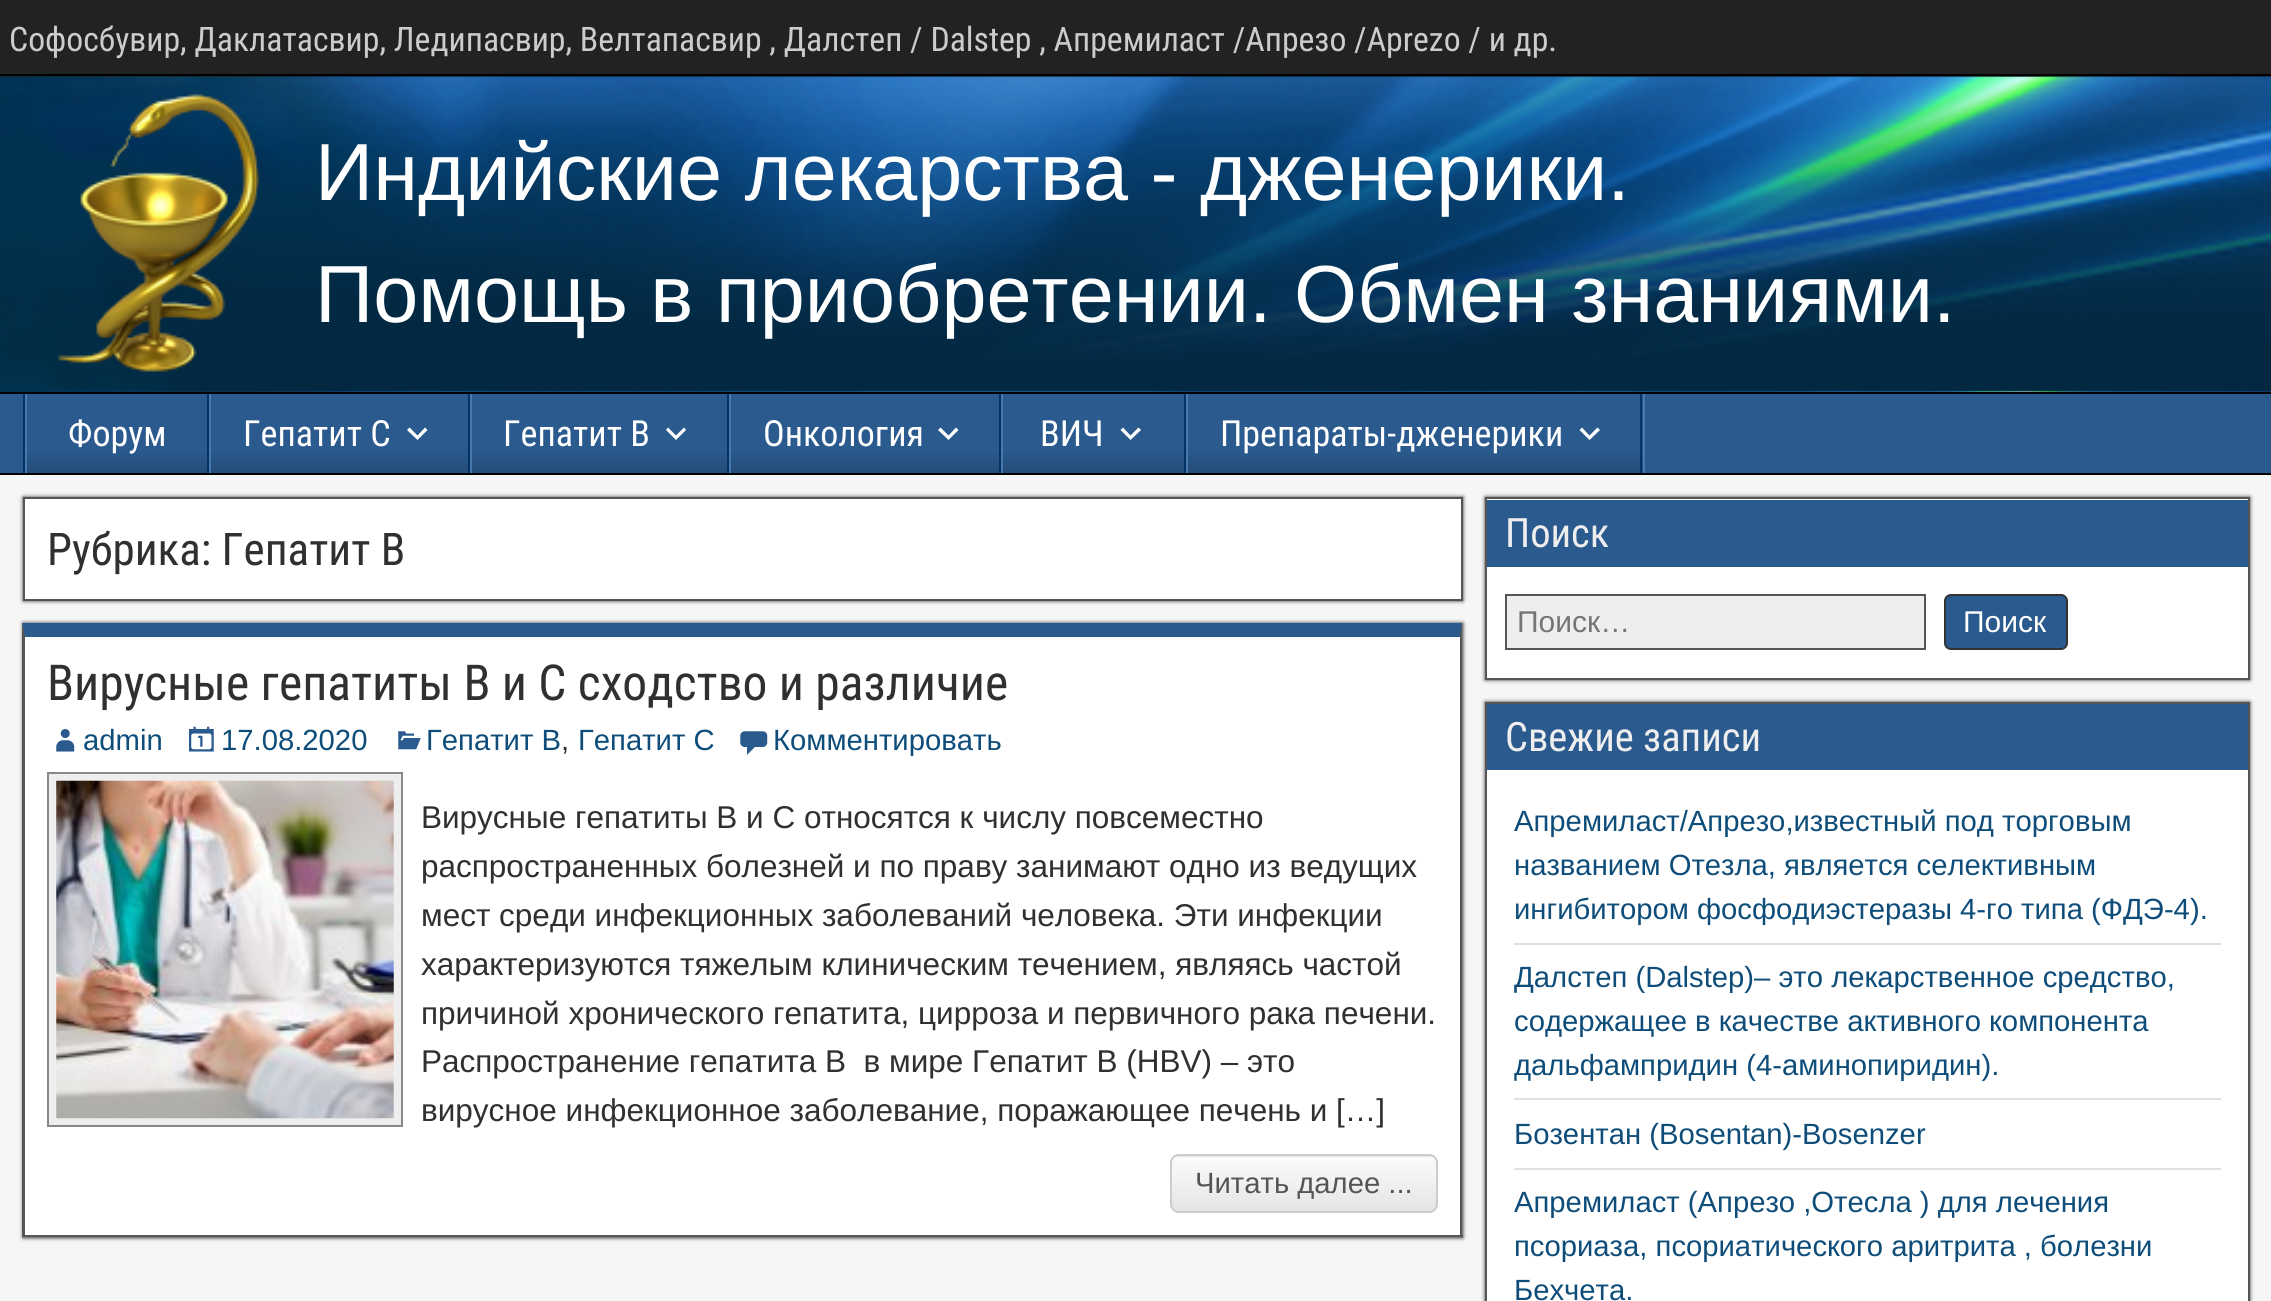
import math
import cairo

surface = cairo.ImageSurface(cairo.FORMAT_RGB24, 2271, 1301)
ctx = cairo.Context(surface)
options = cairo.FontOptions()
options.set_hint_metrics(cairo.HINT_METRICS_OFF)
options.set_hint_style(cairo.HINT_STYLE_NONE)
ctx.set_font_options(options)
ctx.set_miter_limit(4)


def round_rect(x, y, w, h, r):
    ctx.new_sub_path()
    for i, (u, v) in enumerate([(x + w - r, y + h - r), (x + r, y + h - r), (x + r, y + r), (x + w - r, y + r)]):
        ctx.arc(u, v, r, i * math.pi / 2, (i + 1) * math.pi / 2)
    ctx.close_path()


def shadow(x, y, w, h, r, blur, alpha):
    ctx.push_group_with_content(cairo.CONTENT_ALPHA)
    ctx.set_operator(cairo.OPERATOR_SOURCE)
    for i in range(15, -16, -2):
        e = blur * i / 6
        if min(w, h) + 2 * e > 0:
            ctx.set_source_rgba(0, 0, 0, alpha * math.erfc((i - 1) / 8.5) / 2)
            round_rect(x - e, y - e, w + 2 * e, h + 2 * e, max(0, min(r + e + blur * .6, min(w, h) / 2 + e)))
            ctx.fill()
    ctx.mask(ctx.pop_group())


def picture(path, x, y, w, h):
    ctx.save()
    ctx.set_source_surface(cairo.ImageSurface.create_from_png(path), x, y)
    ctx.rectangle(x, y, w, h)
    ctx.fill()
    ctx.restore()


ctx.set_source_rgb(0.133, 0.133, 0.133)
ctx.paint()
ctx.set_source_rgb(0, 0, 0)
ctx.rectangle(0, 74, 2271, 2)
ctx.fill()
ctx.select_font_face("Roboto Condensed")
ctx.set_font_size(33.75)
ctx.set_source_rgb(0.8, 0.8, 0.8)
ctx.move_to(9, 51)
ctx.show_text("Софосбувир, Даклатасвир, Ледипасвир, Велтапасвир , Далстеп / Dalstep , Апремиласт /Апрезо /Aprezo / и др.")
picture("img1.png", 0, 76, 2271, 316)
ctx.set_source_rgb(0, 0, 0)
ctx.rectangle(0, 392, 2271, 2)
ctx.fill()
picture("img2.png", 58, 94, 202, 278)
ctx.select_font_face("Liberation Sans")
ctx.set_font_size(81)
ctx.set_source_rgb(1, 1, 1)
ctx.move_to(315, 200)
ctx.show_text("Индийские лекарства - дженерики.")
ctx.move_to(315, 322)
ctx.show_text("Помощь в приобретении. Обмен знаниями.")
ctx.set_source_rgb(0.165, 0.353, 0.557)
ctx.rectangle(0, 394, 2271, 79)
ctx.fill()
ctx.set_source_rgb(0, 0, 0)
ctx.rectangle(0, 473, 2271, 2)
ctx.fill()
ctx.set_source_rgb(0.282, 0.471, 0.675)
ctx.rectangle(1643, 394, 2, 79)
ctx.fill()
ctx.set_source_rgb(0.008, 0.196, 0.4)
ctx.rectangle(23, 394, 2, 79)
ctx.fill()
gradient = cairo.LinearGradient(117, 394, 117, 473)
gradient.add_color_stop_rgba(0.7, 0.165, 0.353, 0.557, 1)
gradient.add_color_stop_rgba(1, 0.141, 0.302, 0.475, 1)
ctx.set_source(gradient)
ctx.rectangle(27, 452, 180, 21)
ctx.fill()
ctx.set_source_rgb(0.008, 0.196, 0.4)
ctx.rectangle(207, 394, 2, 79)
ctx.fill()
ctx.set_source_rgb(0.282, 0.471, 0.675)
ctx.rectangle(25, 394, 2, 79)
ctx.fill()
ctx.select_font_face("Roboto Condensed")
ctx.set_font_size(36)
ctx.set_source_rgb(1, 1, 1)
ctx.move_to(68, 446)
ctx.show_text("Форум")
gradient = cairo.LinearGradient(340, 394, 340, 473)
gradient.add_color_stop_rgba(0.7, 0.165, 0.353, 0.557, 1)
gradient.add_color_stop_rgba(1, 0.141, 0.302, 0.475, 1)
ctx.set_source(gradient)
ctx.rectangle(211, 452, 257, 21)
ctx.fill()
ctx.set_source_rgb(0.008, 0.196, 0.4)
ctx.rectangle(468, 394, 2, 79)
ctx.fill()
ctx.set_source_rgb(0.282, 0.471, 0.675)
ctx.rectangle(209, 394, 2, 79)
ctx.fill()
ctx.set_source_rgb(1, 1, 1)
ctx.move_to(243, 446)
ctx.show_text("Гепатит С")
ctx.new_path()
ctx.move_to(425, 427.5)
ctx.line_to(427.5, 430)
ctx.line_to(417.5, 440)
ctx.line_to(407, 430)
ctx.line_to(409.5, 427.5)
ctx.line_to(417.5, 435.5)
ctx.close_path()
ctx.fill()
gradient = cairo.LinearGradient(600, 394, 600, 473)
gradient.add_color_stop_rgba(0.7, 0.165, 0.353, 0.557, 1)
gradient.add_color_stop_rgba(1, 0.141, 0.302, 0.475, 1)
ctx.set_source(gradient)
ctx.rectangle(472, 452, 255, 21)
ctx.fill()
ctx.set_source_rgb(0.008, 0.196, 0.4)
ctx.rectangle(727, 394, 2, 79)
ctx.fill()
ctx.set_source_rgb(0.282, 0.471, 0.675)
ctx.rectangle(470, 394, 2, 79)
ctx.fill()
ctx.set_source_rgb(1, 1, 1)
ctx.move_to(503, 446)
ctx.show_text("Гепатит В")
ctx.new_path()
ctx.move_to(684, 427.5)
ctx.line_to(686, 430)
ctx.line_to(676, 440)
ctx.line_to(666, 430)
ctx.line_to(668, 427.5)
ctx.line_to(676, 435.5)
ctx.close_path()
ctx.fill()
gradient = cairo.LinearGradient(865, 394, 865, 473)
gradient.add_color_stop_rgba(0.7, 0.165, 0.353, 0.557, 1)
gradient.add_color_stop_rgba(1, 0.141, 0.302, 0.475, 1)
ctx.set_source(gradient)
ctx.rectangle(731, 452, 268, 21)
ctx.fill()
ctx.set_source_rgb(0.008, 0.196, 0.4)
ctx.rectangle(999, 394, 2, 79)
ctx.fill()
ctx.set_source_rgb(0.282, 0.471, 0.675)
ctx.rectangle(729, 394, 2, 79)
ctx.fill()
ctx.set_source_rgb(1, 1, 1)
ctx.move_to(763, 446)
ctx.show_text("Онкология")
ctx.new_path()
ctx.move_to(956, 427.5)
ctx.line_to(958.5, 430)
ctx.line_to(948.5, 440)
ctx.line_to(938, 430)
ctx.line_to(940.5, 427.5)
ctx.line_to(948.5, 435.5)
ctx.close_path()
ctx.fill()
gradient = cairo.LinearGradient(1094, 394, 1094, 473)
gradient.add_color_stop_rgba(0.7, 0.165, 0.353, 0.557, 1)
gradient.add_color_stop_rgba(1, 0.141, 0.302, 0.475, 1)
ctx.set_source(gradient)
ctx.rectangle(1003, 452, 181, 21)
ctx.fill()
ctx.set_source_rgb(0.008, 0.196, 0.4)
ctx.rectangle(1184, 394, 2, 79)
ctx.fill()
ctx.set_source_rgb(0.282, 0.471, 0.675)
ctx.rectangle(1001, 394, 2, 79)
ctx.fill()
ctx.set_source_rgb(1, 1, 1)
ctx.move_to(1040, 446)
ctx.show_text("ВИЧ")
ctx.new_path()
ctx.move_to(1138.5, 427.5)
ctx.line_to(1141, 430)
ctx.line_to(1130.5, 440)
ctx.line_to(1120.5, 430)
ctx.line_to(1123, 427.5)
ctx.line_to(1130.5, 435.5)
ctx.close_path()
ctx.fill()
gradient = cairo.LinearGradient(1414, 394, 1414, 473)
gradient.add_color_stop_rgba(0.7, 0.165, 0.353, 0.557, 1)
gradient.add_color_stop_rgba(1, 0.141, 0.302, 0.475, 1)
ctx.set_source(gradient)
ctx.rectangle(1188, 452, 455, 21)
ctx.fill()
ctx.set_source_rgb(0.008, 0.196, 0.4)
ctx.rectangle(1640, 394, 2, 79)
ctx.fill()
ctx.set_source_rgb(0.282, 0.471, 0.675)
ctx.rectangle(1186, 394, 2, 79)
ctx.fill()
ctx.set_source_rgb(1, 1, 1)
ctx.move_to(1220, 446)
ctx.show_text("Препараты-дженерики")
ctx.new_path()
ctx.move_to(1597.5, 427.5)
ctx.line_to(1600, 430)
ctx.line_to(1589.5, 440)
ctx.line_to(1579.5, 430)
ctx.line_to(1582, 427.5)
ctx.line_to(1589.5, 435.5)
ctx.close_path()
ctx.fill()
ctx.set_source_rgb(0.961, 0.961, 0.961)
ctx.rectangle(0, 475, 2271, 826)
ctx.fill()
ctx.set_source_rgb(0.2, 0.2, 0.2)
shadow(23, 497, 1440, 104, 0, 2, 1)
ctx.set_source_rgb(1, 1, 1)
ctx.rectangle(24, 498, 1438, 102)
ctx.fill_preserve()
ctx.set_source_rgb(0.333, 0.333, 0.333)
ctx.stroke()
ctx.set_font_size(45)
ctx.set_source_rgb(0.188, 0.188, 0.188)
ctx.move_to(47, 565)
ctx.show_text("Рубрика: Гепатит B")
ctx.set_source_rgb(0.2, 0.2, 0.2)
shadow(23, 623, 1440, 615, 0, 2, 1)
ctx.set_source_rgb(1, 1, 1)
ctx.rectangle(25, 637, 1435, 598)
ctx.fill()
ctx.set_source_rgb(0.165, 0.353, 0.557)
ctx.new_path()
ctx.move_to(22, 623)
ctx.line_to(1462, 623)
ctx.line_to(1460, 637)
ctx.line_to(25, 637)
ctx.close_path()
ctx.fill()
ctx.set_source_rgb(0.333, 0.333, 0.333)
ctx.new_path()
ctx.move_to(1462, 623)
ctx.line_to(1462, 1238)
ctx.line_to(1460, 1235)
ctx.line_to(1460, 637)
ctx.close_path()
ctx.fill()
ctx.rectangle(23, 1235, 1440, 2)
ctx.fill()
ctx.new_path()
ctx.move_to(22, 1238)
ctx.line_to(22, 623)
ctx.line_to(25, 637)
ctx.line_to(25, 1235)
ctx.close_path()
ctx.fill()
ctx.set_font_size(49.5)
ctx.set_source_rgb(0.188, 0.188, 0.188)
ctx.move_to(47, 700)
ctx.show_text("Вирусные гепатиты В и С сходство и различие")
picture("img3.png", 56, 729, 19, 23)
ctx.select_font_face("Liberation Sans")
ctx.set_font_size(29.25)
ctx.set_source_rgb(0.055, 0.302, 0.478)
ctx.move_to(83, 750)
ctx.show_text("admin")
picture("img4.png", 189, 726, 25, 26)
ctx.move_to(221, 750)
ctx.show_text("17.08.2020")
picture("img5.png", 398, 731, 23, 19)
ctx.move_to(426, 750)
ctx.show_text("Гепатит B")
ctx.set_source_rgb(0.188, 0.188, 0.188)
ctx.move_to(561, 750)
ctx.show_text(",")
ctx.set_source_rgb(0.055, 0.302, 0.478)
ctx.move_to(578, 750)
ctx.show_text("Гепатит С")
picture("img6.png", 740, 731, 28, 24)
ctx.move_to(773, 750)
ctx.show_text("Комментировать")
ctx.set_source_rgb(0.933, 0.933, 0.933)
ctx.rectangle(48, 773, 354, 353)
ctx.fill_preserve()
ctx.set_source_rgb(0.533, 0.533, 0.533)
ctx.stroke()
picture("img7.png", 56, 780, 338, 339)
ctx.select_font_face("Arimo")
ctx.set_font_size(31.5)
ctx.set_source_rgb(0.188, 0.188, 0.188)
ctx.move_to(421, 828)
ctx.show_text("Вирусные гепатиты В и С относятся к числу повсеместно")
ctx.move_to(421, 877)
ctx.show_text("распространенных болезней и по праву занимают одно из ведущих")
ctx.move_to(421, 926)
ctx.show_text("мест среди инфекционных заболеваний человека. Эти инфекции")
ctx.move_to(421, 975)
ctx.show_text("характеризуются тяжелым клиническим течением, являясь частой")
ctx.move_to(421, 1024)
ctx.show_text("причиной хронического гепатита, цирроза и первичного рака печени.")
ctx.move_to(421, 1072)
ctx.show_text("Распространение гепатита В  в мире Гепатит В (HBV) – это")
ctx.move_to(421, 1121)
ctx.show_text("вирусное инфекционное заболевание, поражающее печень и […]")
ctx.save()
round_rect(1170, 1154, 268, 59, 9)
ctx.clip()
gradient = cairo.LinearGradient(1304, 1103, 1304, 1157)
gradient.add_color_stop_rgba(0, 0.984, 0.984, 0.984, 1)
gradient.add_color_stop_rgba(1, 0.898, 0.898, 0.898, 1)
ctx.set_source(gradient)
ctx.rectangle(1170, 1154, 268, 3)
ctx.fill()
gradient = cairo.LinearGradient(1304, 1157, 1304, 1211)
gradient.add_color_stop_rgba(0, 0.984, 0.984, 0.984, 1)
gradient.add_color_stop_rgba(1, 0.898, 0.898, 0.898, 1)
ctx.set_source(gradient)
ctx.rectangle(1170, 1157, 268, 54)
ctx.fill()
ctx.restore()
round_rect(1171, 1155, 266, 57, 8)
ctx.set_source_rgb(0.8, 0.8, 0.8)
ctx.stroke()
ctx.select_font_face("Liberation Sans")
ctx.set_font_size(29.25)
ctx.set_source_rgb(0.333, 0.333, 0.333)
ctx.move_to(1195, 1193)
ctx.show_text("Читать далее ...")
ctx.set_source_rgb(0.2, 0.2, 0.2)
shadow(1485, 497, 765, 183, 0, 2, 1)
ctx.set_source_rgb(1, 1, 1)
ctx.rectangle(1486, 498, 763, 181)
ctx.fill_preserve()
ctx.set_source_rgb(0.333, 0.333, 0.333)
ctx.stroke()
ctx.set_source_rgb(0.165, 0.353, 0.557)
ctx.rectangle(1487, 500, 761, 67)
ctx.fill()
ctx.select_font_face("Roboto Condensed")
ctx.set_font_size(40.5)
ctx.set_source_rgb(0.933, 0.933, 0.933)
ctx.move_to(1505, 547)
ctx.show_text("Поиск")
ctx.rectangle(1506, 595, 419, 54)
ctx.fill_preserve()
ctx.set_source_rgb(0.333, 0.333, 0.333)
ctx.stroke()
ctx.select_font_face("Liberation Sans")
ctx.set_font_size(30)
ctx.set_source_rgb(0.459, 0.459, 0.459)
ctx.move_to(1517, 632)
ctx.show_text("Поиск…")
ctx.set_source_rgb(0.165, 0.353, 0.557)
round_rect(1945, 595, 122, 54, 6)
ctx.fill_preserve()
ctx.set_source_rgb(0.2, 0.2, 0.2)
ctx.stroke()
ctx.set_source_rgb(1, 1, 1)
ctx.move_to(1963, 632)
ctx.show_text("Поиск")
ctx.set_source_rgb(0.2, 0.2, 0.2)
shadow(1485, 702, 765, 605, 0, 2, 1)
ctx.set_source_rgb(1, 1, 1)
ctx.rectangle(1487, 770, 761, 531)
ctx.fill()
ctx.rectangle(1486, 703, 763, 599)
ctx.set_source_rgb(0.333, 0.333, 0.333)
ctx.stroke()
ctx.set_source_rgb(0.165, 0.353, 0.557)
ctx.rectangle(1487, 704, 761, 66)
ctx.fill()
ctx.select_font_face("Roboto Condensed")
ctx.set_font_size(40.5)
ctx.set_source_rgb(0.933, 0.933, 0.933)
ctx.move_to(1505, 751)
ctx.show_text("Свежие записи")
ctx.set_source_rgb(0.878, 0.878, 0.878)
ctx.rectangle(1514, 943, 707, 2)
ctx.fill()
ctx.select_font_face("Liberation Sans")
ctx.set_font_size(29.25)
ctx.set_source_rgb(0.055, 0.302, 0.478)
ctx.move_to(1514, 831)
ctx.show_text("Апремиласт/Апрезо,известный под торговым")
ctx.move_to(1514, 875)
ctx.show_text("названием Отезла, является селективным")
ctx.move_to(1514, 919)
ctx.show_text("ингибитором фосфодиэстеразы 4-го типа (ФДЭ-4).")
ctx.set_source_rgb(0.878, 0.878, 0.878)
ctx.rectangle(1514, 1098, 707, 2)
ctx.fill()
ctx.set_source_rgb(0.055, 0.302, 0.478)
ctx.move_to(1514, 987)
ctx.show_text("Далстеп (Dalstep)– это лекарственное средство,")
ctx.move_to(1514, 1031)
ctx.show_text("содержащее в качестве активного компонента")
ctx.move_to(1514, 1075)
ctx.show_text("дальфампридин (4-аминопиридин).")
ctx.set_source_rgb(0.878, 0.878, 0.878)
ctx.rectangle(1514, 1168, 707, 2)
ctx.fill()
ctx.set_source_rgb(0.055, 0.302, 0.478)
ctx.move_to(1514, 1144)
ctx.show_text("Бозентан (Bosentan)-Bosenzer")
ctx.move_to(1514, 1212)
ctx.show_text("Апремиласт (Апрезо ,Отесла ) для лечения")
ctx.move_to(1514, 1256)
ctx.show_text("псориаза, псориатического аритрита , болезни")
ctx.move_to(1514, 1300)
ctx.show_text("Бехчета.")
surface.write_to_png("page.png")
